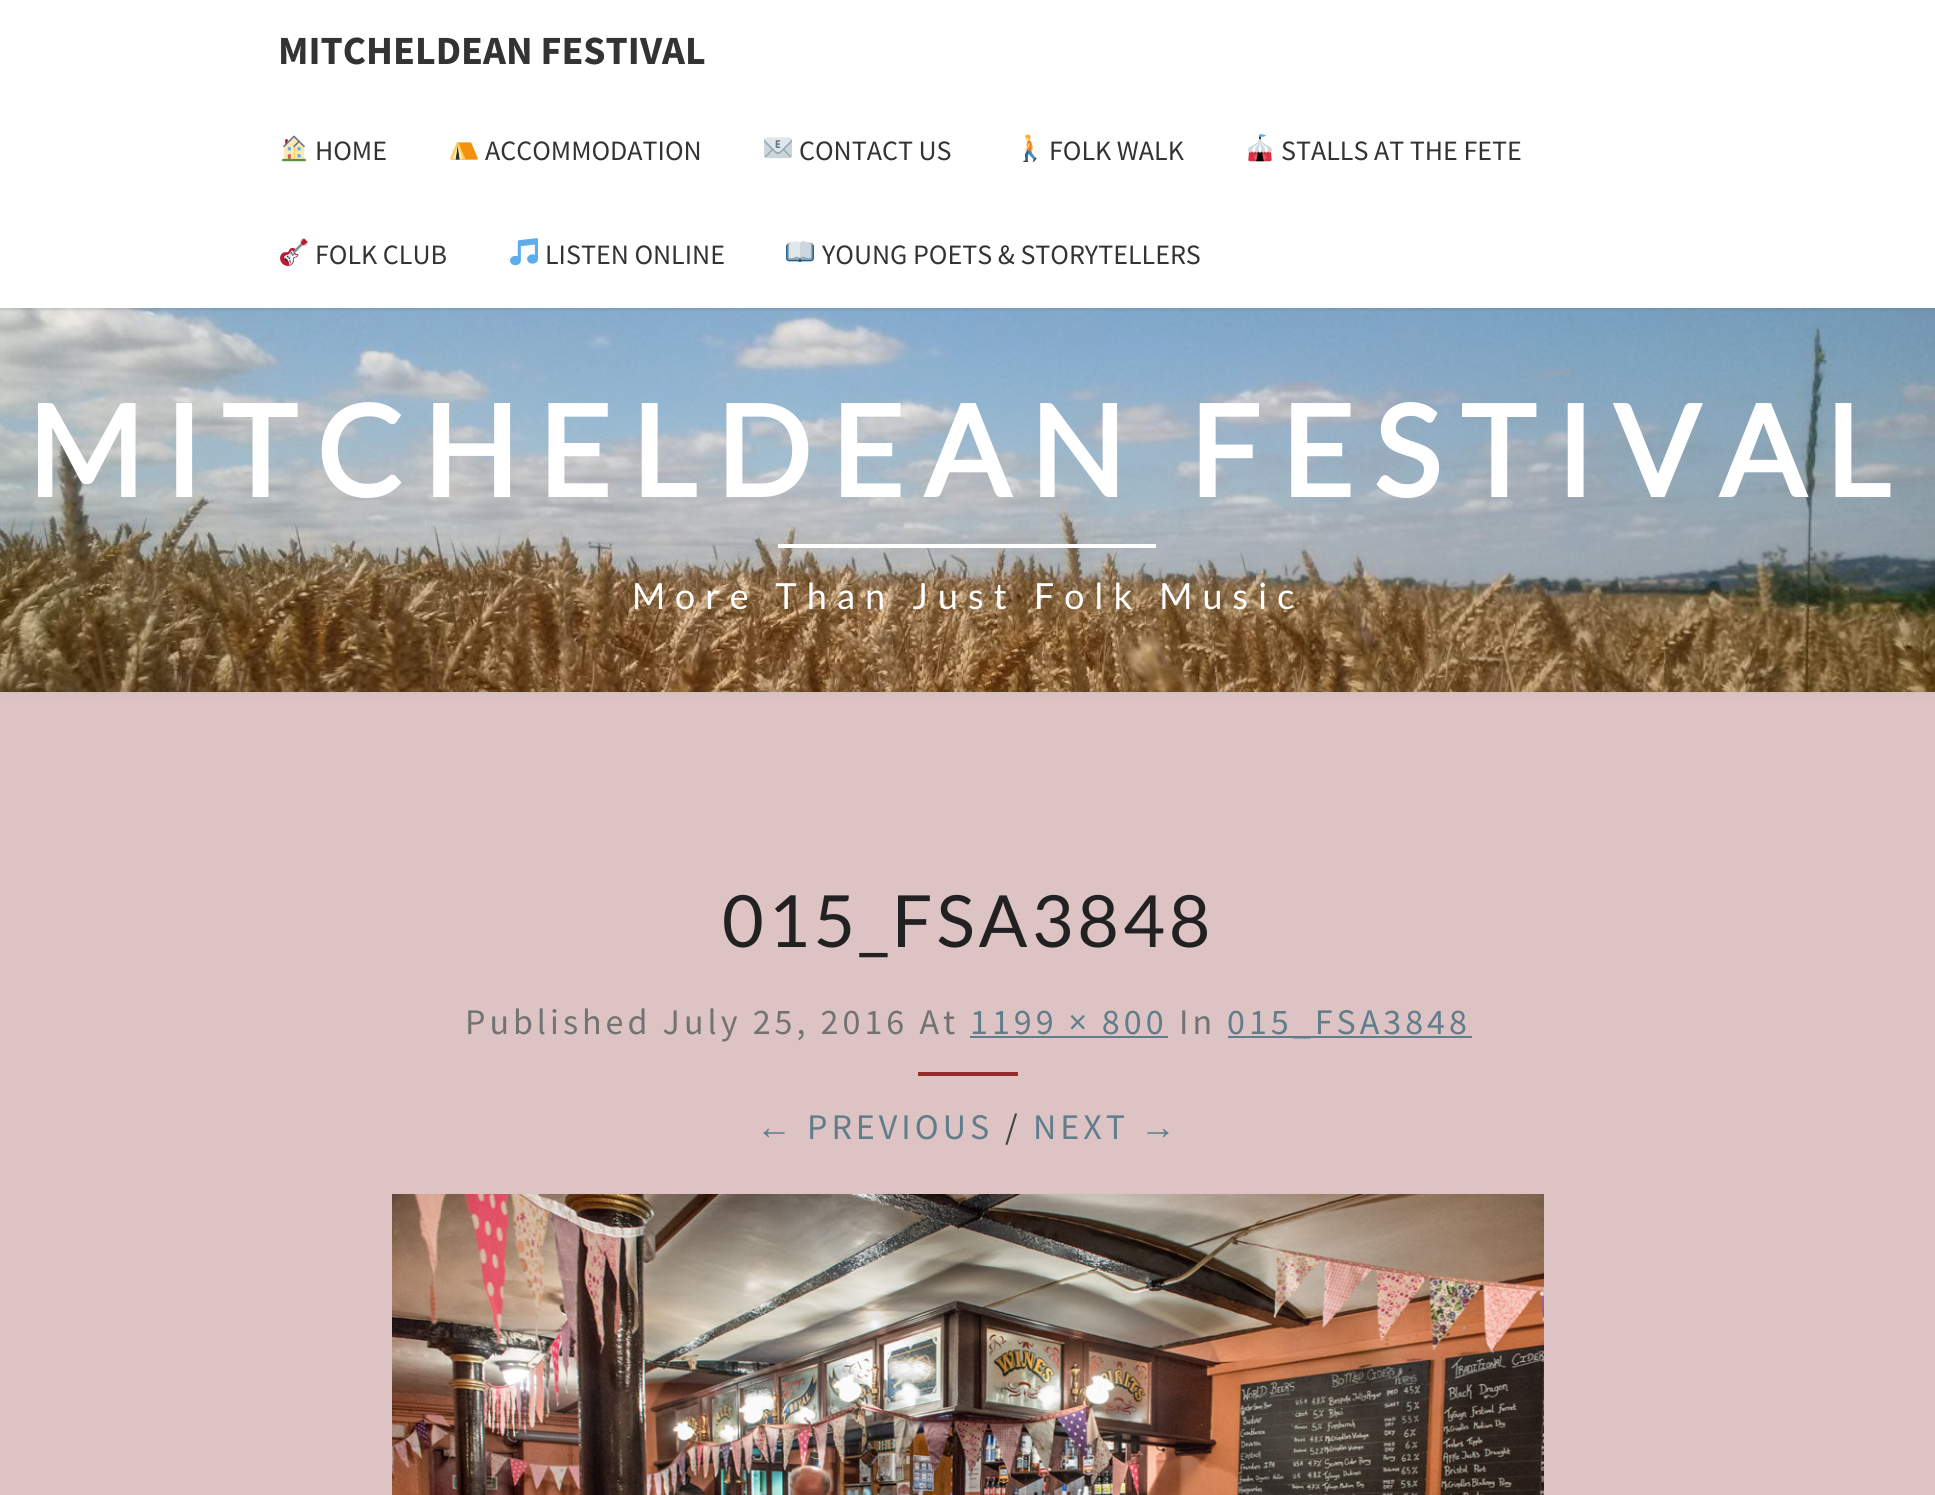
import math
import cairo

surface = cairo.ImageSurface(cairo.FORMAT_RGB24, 1935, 1495)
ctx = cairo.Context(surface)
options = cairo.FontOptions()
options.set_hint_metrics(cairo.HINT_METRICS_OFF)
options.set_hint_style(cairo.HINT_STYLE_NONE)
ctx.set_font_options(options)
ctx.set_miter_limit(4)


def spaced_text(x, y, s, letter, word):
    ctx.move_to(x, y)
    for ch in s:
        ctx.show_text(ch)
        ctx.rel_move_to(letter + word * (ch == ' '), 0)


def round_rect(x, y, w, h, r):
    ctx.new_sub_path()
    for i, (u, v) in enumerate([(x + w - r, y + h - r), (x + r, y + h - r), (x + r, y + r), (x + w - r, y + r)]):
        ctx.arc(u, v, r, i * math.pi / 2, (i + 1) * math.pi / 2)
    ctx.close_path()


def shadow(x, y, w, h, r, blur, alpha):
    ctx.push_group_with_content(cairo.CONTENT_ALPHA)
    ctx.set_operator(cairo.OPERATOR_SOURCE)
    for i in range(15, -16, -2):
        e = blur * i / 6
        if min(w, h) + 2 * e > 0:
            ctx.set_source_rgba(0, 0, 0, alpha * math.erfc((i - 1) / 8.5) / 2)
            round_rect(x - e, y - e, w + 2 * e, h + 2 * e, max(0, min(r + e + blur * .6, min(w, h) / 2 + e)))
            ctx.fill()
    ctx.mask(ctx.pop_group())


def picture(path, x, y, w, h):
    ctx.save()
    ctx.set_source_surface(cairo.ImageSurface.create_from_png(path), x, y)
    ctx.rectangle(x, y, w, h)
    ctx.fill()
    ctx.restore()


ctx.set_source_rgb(0.867, 0.765, 0.765)
ctx.paint()
ctx.set_source_rgb(0.714, 0.714, 0.714)
shadow(-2, 306, 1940, 388, 0, 2, 0.3)
picture("img9.png", 0, 308, 1935, 384)
ctx.set_source_rgb(0.392, 0.392, 0.392)
shadow(0, 2, 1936, 308, 0, 1, 0.2)
ctx.set_source_rgb(1, 1, 1)
ctx.rectangle(0, 0, 1935, 308)
ctx.fill()
ctx.select_font_face("Source Sans Pro", cairo.FONT_SLANT_NORMAL, cairo.FONT_WEIGHT_BOLD)
ctx.set_font_size(40)
ctx.set_source_rgb(0.2, 0.2, 0.2)
ctx.move_to(278, 64)
ctx.show_text("MITCHELDEAN FESTIVAL")
picture("img1.png", 282, 135, 24, 27)
ctx.select_font_face("Source Sans Pro")
ctx.set_font_size(28)
ctx.move_to(315, 160)
ctx.show_text("HOME")
picture("img2.png", 450, 142, 28, 18)
ctx.move_to(485, 160)
ctx.show_text("ACCOMMODATION")
picture("img3.png", 764, 137, 28, 22)
ctx.move_to(799, 160)
ctx.show_text("CONTACT US")
picture("img4.png", 1023, 134, 14, 28)
ctx.move_to(1049, 160)
ctx.show_text("FOLK WALK")
picture("img5.png", 1248, 134, 24, 28)
ctx.move_to(1281, 160)
ctx.show_text("STALLS AT THE FETE")
picture("img6.png", 280, 238, 28, 28)
ctx.move_to(315, 264)
ctx.show_text("FOLK CLUB")
picture("img7.png", 510, 238, 28, 28)
ctx.move_to(545, 264)
ctx.show_text("LISTEN ONLINE")
picture("img8.png", 786, 241, 28, 22)
ctx.move_to(822, 264)
ctx.show_text("YOUNG POETS & STORYTELLERS")
ctx.select_font_face("Lato", cairo.FONT_SLANT_NORMAL, cairo.FONT_WEIGHT_BOLD)
ctx.set_font_size(126)
ctx.set_source_rgb(1, 1, 1)
spaced_text(27, 497, "MITCHELDEAN FESTIVAL", 20, 0)
ctx.rectangle(778, 544, 378, 4)
ctx.fill()
ctx.select_font_face("Lato")
ctx.set_font_size(36)
spaced_text(632, 609, "More Than Just Folk Music", 10, 0)
ctx.set_font_size(72)
ctx.set_source_rgb(0.129, 0.129, 0.129)
spaced_text(722, 947, "015_FSA3848", 4, 0)
ctx.select_font_face("Source Sans Pro")
ctx.set_font_size(36)
ctx.set_source_rgb(0.447, 0.447, 0.447)
spaced_text(465, 1034, "Published July 25, 2016 At", 4, 0)
ctx.set_source_rgb(0.376, 0.49, 0.545)
spaced_text(970, 1034, "1199 × 800", 4, 0)
ctx.rectangle(970, 1036, 198, 2)
ctx.fill()
ctx.set_source_rgb(0.447, 0.447, 0.447)
spaced_text(1179, 1034, "In", 4, 0)
ctx.set_source_rgb(0.376, 0.49, 0.545)
ctx.rectangle(1228, 1036, 244, 2)
ctx.fill()
spaced_text(1227, 1034, "015_FSA3848", 4, 0)
ctx.set_source_rgb(0.588, 0.176, 0.176)
ctx.rectangle(918, 1072, 100, 4)
ctx.fill()
ctx.select_font_face("Liberation Sans")
ctx.set_source_rgb(0.376, 0.49, 0.545)
spaced_text(756, 1139, "←", 4, 0)
ctx.select_font_face("Source Sans Pro")
spaced_text(807, 1139, "PREVIOUS", 4, 0)
ctx.set_source_rgb(0.259, 0.259, 0.259)
spaced_text(1005, 1139, "/", 4, 0)
ctx.set_source_rgb(0.376, 0.49, 0.545)
spaced_text(1033, 1139, "NEXT", 4, 0)
ctx.select_font_face("Liberation Sans")
spaced_text(1140, 1139, "→", 4, 0)
picture("img10.png", 392, 1194, 1152, 301)
surface.write_to_png("page.png")
